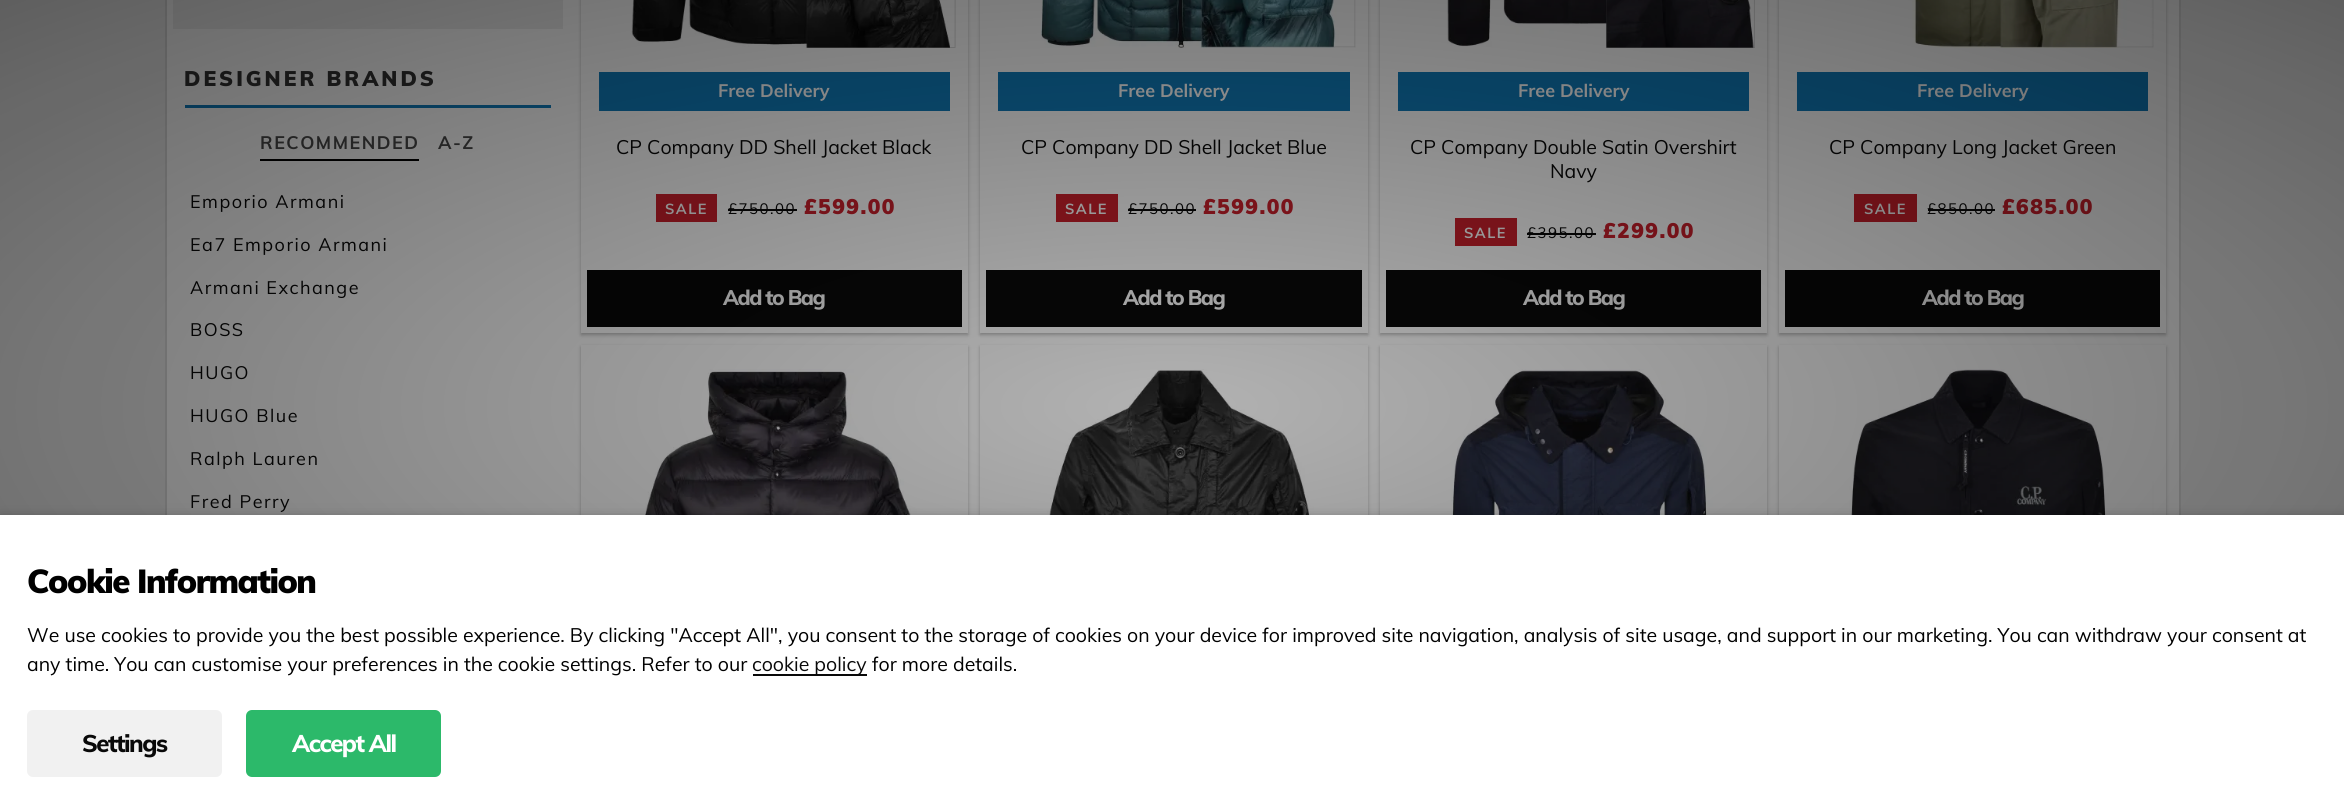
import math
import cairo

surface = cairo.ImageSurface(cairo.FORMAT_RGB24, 2344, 811)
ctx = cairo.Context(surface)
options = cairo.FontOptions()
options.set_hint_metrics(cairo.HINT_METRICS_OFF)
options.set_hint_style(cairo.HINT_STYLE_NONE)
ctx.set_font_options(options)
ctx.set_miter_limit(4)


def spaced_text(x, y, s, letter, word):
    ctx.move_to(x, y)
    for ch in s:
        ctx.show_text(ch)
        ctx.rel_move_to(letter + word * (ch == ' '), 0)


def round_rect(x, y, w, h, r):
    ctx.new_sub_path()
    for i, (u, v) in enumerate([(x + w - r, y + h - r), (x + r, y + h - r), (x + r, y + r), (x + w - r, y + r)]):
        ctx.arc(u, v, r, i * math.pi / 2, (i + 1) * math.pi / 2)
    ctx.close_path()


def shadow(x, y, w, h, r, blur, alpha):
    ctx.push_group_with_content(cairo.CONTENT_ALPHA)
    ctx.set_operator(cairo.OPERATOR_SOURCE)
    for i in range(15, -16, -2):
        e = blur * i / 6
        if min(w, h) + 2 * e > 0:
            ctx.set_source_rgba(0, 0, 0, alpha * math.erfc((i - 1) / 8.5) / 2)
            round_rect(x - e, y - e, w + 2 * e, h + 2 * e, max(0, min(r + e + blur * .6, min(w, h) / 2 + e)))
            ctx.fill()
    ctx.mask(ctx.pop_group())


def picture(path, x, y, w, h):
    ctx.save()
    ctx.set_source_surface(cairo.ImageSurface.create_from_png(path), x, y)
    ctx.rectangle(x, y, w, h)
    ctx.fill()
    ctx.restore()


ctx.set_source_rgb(0.933, 0.933, 0.933)
ctx.paint()
ctx.set_source_rgb(1, 1, 1)
ctx.rectangle(167, 0, 2012, 515)
ctx.fill()
ctx.rectangle(166, -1, 2014, 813)
ctx.set_source_rgb(0.859, 0.859, 0.859)
ctx.stroke()
ctx.set_source_rgb(0.933, 0.933, 0.933)
ctx.rectangle(173, 0, 390, 29)
ctx.fill()
ctx.set_source_rgb(0.063, 0.486, 0.733)
ctx.rectangle(185, 105, 366, 3)
ctx.fill()
ctx.select_font_face("Mulish Black")
ctx.set_font_size(21)
ctx.set_source_rgb(0.2, 0.2, 0.2)
spaced_text(184, 86, "DESIGNER BRANDS", 3, 0)
ctx.select_font_face("Mulish", cairo.FONT_SLANT_NORMAL, cairo.FONT_WEIGHT_BOLD)
ctx.set_font_size(18)
ctx.set_source_rgb(0.29, 0.29, 0.29)
spaced_text(260, 149, "RECOMMENDED", 1.5, 0)
ctx.set_source_rgb(0, 0, 0)
ctx.rectangle(260, 159, 159, 2)
ctx.fill()
ctx.set_source_rgb(0.29, 0.29, 0.29)
spaced_text(438, 149, "A-Z", 1.5, 0)
ctx.select_font_face("Mulish")
ctx.set_source_rgb(0.039, 0.039, 0.039)
spaced_text(190, 208, "Emporio Armani", 1.5, 0)
spaced_text(190, 251, "Ea7 Emporio Armani", 1.5, 0)
spaced_text(190, 294, "Armani Exchange", 1.5, 0)
spaced_text(190, 336, "BOSS", 1.5, 0)
spaced_text(190, 379, "HUGO", 1.5, 0)
spaced_text(190, 422, "HUGO Blue", 1.5, 0)
spaced_text(190, 465, "Ralph Lauren", 1.5, 0)
spaced_text(190, 508, "Fred Perry", 1.5, 0)
ctx.set_source_rgb(0, 0, 0)
shadow(581, -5, 387, 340, 0, 1.5, 0.12)
shadow(581, -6, 387, 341, 0, 2, 0.15)
ctx.set_source_rgb(1, 1, 1)
ctx.rectangle(581, 0, 387, 333)
ctx.fill()
picture("img1.png", 630, 0, 326, 48)
ctx.set_source_rgb(0.063, 0.486, 0.733)
ctx.rectangle(599, 72, 351, 39)
ctx.fill()
ctx.select_font_face("Mulish", cairo.FONT_SLANT_NORMAL, cairo.FONT_WEIGHT_BOLD)
ctx.set_source_rgb(1, 1, 1)
ctx.move_to(718, 97)
ctx.show_text("Free Delivery")
ctx.select_font_face("Mulish")
ctx.set_font_size(19.5)
ctx.set_source_rgb(0.039, 0.039, 0.039)
ctx.move_to(616, 154)
ctx.show_text("CP Company DD Shell Jacket Black")
ctx.set_source_rgb(0.8, 0.125, 0.173)
ctx.rectangle(656, 194, 61, 28)
ctx.fill()
ctx.select_font_face("Mulish", cairo.FONT_SLANT_NORMAL, cairo.FONT_WEIGHT_BOLD)
ctx.set_font_size(14.5)
ctx.set_source_rgb(1, 1, 1)
spaced_text(665, 214, "SALE", 1.5, 0)
ctx.select_font_face("Mulish")
ctx.set_font_size(15)
ctx.set_source_rgb(0.039, 0.039, 0.039)
spaced_text(728, 214, "£750.00", 1.5, 0)
ctx.rectangle(728, 209, 69, 2)
ctx.fill()
ctx.select_font_face("Mulish Black")
ctx.set_font_size(21)
ctx.set_source_rgb(0.8, 0.125, 0.173)
spaced_text(804, 214, "£599.00", 1.5, 0)
ctx.set_source_rgb(0.039, 0.039, 0.039)
ctx.rectangle(587, 270, 375, 57)
ctx.fill()
ctx.select_font_face("Mulish ExtraBold")
ctx.set_source_rgb(1, 1, 1)
spaced_text(723, 305, "Add to Bag", -1.5, 0)
ctx.save()
ctx.set_fill_rule(cairo.FILL_RULE_EVEN_ODD)
ctx.new_path()
ctx.move_to(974, 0)
ctx.line_to(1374, 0)
ctx.line_to(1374, 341)
ctx.line_to(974, 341)
ctx.close_path()
ctx.move_to(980, -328)
ctx.line_to(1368, -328)
ctx.line_to(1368, 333)
ctx.line_to(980, 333)
ctx.close_path()
ctx.clip()
ctx.set_source_rgb(0, 0, 0)
shadow(980, -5, 388, 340, 0, 1.5, 0.12)
ctx.restore()
ctx.save()
ctx.set_fill_rule(cairo.FILL_RULE_EVEN_ODD)
ctx.new_path()
ctx.move_to(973, 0)
ctx.line_to(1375, 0)
ctx.line_to(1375, 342)
ctx.line_to(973, 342)
ctx.close_path()
ctx.move_to(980, -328)
ctx.line_to(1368, -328)
ctx.line_to(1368, 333)
ctx.line_to(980, 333)
ctx.close_path()
ctx.clip()
ctx.set_source_rgb(0, 0, 0)
shadow(980, -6, 388, 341, 0, 2, 0.15)
ctx.restore()
picture("img2.png", 1041, 0, 315, 48)
ctx.set_source_rgb(0.063, 0.486, 0.733)
ctx.rectangle(998, 72, 352, 39)
ctx.fill()
ctx.select_font_face("Mulish", cairo.FONT_SLANT_NORMAL, cairo.FONT_WEIGHT_BOLD)
ctx.set_font_size(18)
ctx.set_source_rgb(1, 1, 1)
ctx.move_to(1118, 97)
ctx.show_text("Free Delivery")
ctx.select_font_face("Mulish")
ctx.set_font_size(19.5)
ctx.set_source_rgb(0.039, 0.039, 0.039)
ctx.move_to(1021, 154)
ctx.show_text("CP Company DD Shell Jacket Blue")
ctx.set_source_rgb(0.8, 0.125, 0.173)
ctx.rectangle(1056, 194, 62, 28)
ctx.fill()
ctx.select_font_face("Mulish", cairo.FONT_SLANT_NORMAL, cairo.FONT_WEIGHT_BOLD)
ctx.set_font_size(14.5)
ctx.set_source_rgb(1, 1, 1)
spaced_text(1065, 214, "SALE", 1.5, 0)
ctx.select_font_face("Mulish")
ctx.set_font_size(15)
ctx.set_source_rgb(0.039, 0.039, 0.039)
spaced_text(1128, 214, "£750.00", 1.5, 0)
ctx.rectangle(1128, 209, 68, 2)
ctx.fill()
ctx.select_font_face("Mulish Black")
ctx.set_font_size(21)
ctx.set_source_rgb(0.8, 0.125, 0.173)
spaced_text(1203, 214, "£599.00", 1.5, 0)
ctx.set_source_rgb(0.039, 0.039, 0.039)
ctx.rectangle(986, 270, 376, 57)
ctx.fill()
ctx.select_font_face("Mulish ExtraBold")
ctx.set_source_rgb(1, 1, 1)
spaced_text(1123, 305, "Add to Bag", -1.5, 0)
ctx.save()
ctx.set_fill_rule(cairo.FILL_RULE_EVEN_ODD)
ctx.new_path()
ctx.move_to(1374, 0)
ctx.line_to(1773, 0)
ctx.line_to(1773, 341)
ctx.line_to(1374, 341)
ctx.close_path()
ctx.move_to(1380, -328)
ctx.line_to(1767, -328)
ctx.line_to(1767, 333)
ctx.line_to(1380, 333)
ctx.close_path()
ctx.clip()
ctx.set_source_rgb(0, 0, 0)
shadow(1380, -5, 387, 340, 0, 1.5, 0.12)
ctx.restore()
ctx.save()
ctx.set_fill_rule(cairo.FILL_RULE_EVEN_ODD)
ctx.new_path()
ctx.move_to(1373, 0)
ctx.line_to(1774, 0)
ctx.line_to(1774, 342)
ctx.line_to(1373, 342)
ctx.close_path()
ctx.move_to(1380, -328)
ctx.line_to(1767, -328)
ctx.line_to(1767, 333)
ctx.line_to(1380, 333)
ctx.close_path()
ctx.clip()
ctx.set_source_rgb(0, 0, 0)
shadow(1380, -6, 387, 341, 0, 2, 0.15)
ctx.restore()
picture("img3.png", 1447, 0, 308, 48)
ctx.set_source_rgb(0.063, 0.486, 0.733)
ctx.rectangle(1398, 72, 351, 39)
ctx.fill()
ctx.select_font_face("Mulish", cairo.FONT_SLANT_NORMAL, cairo.FONT_WEIGHT_BOLD)
ctx.set_font_size(18)
ctx.set_source_rgb(1, 1, 1)
ctx.move_to(1518, 97)
ctx.show_text("Free Delivery")
ctx.select_font_face("Mulish")
ctx.set_font_size(19.5)
ctx.set_source_rgb(0.039, 0.039, 0.039)
ctx.move_to(1410, 154)
ctx.show_text("CP Company Double Satin Overshirt")
ctx.move_to(1550, 178)
ctx.show_text("Navy")
ctx.set_source_rgb(0.8, 0.125, 0.173)
ctx.rectangle(1455, 218, 62, 28)
ctx.fill()
ctx.select_font_face("Mulish", cairo.FONT_SLANT_NORMAL, cairo.FONT_WEIGHT_BOLD)
ctx.set_font_size(14.5)
ctx.set_source_rgb(1, 1, 1)
spaced_text(1464, 238, "SALE", 1.5, 0)
ctx.select_font_face("Mulish")
ctx.set_font_size(15)
ctx.set_source_rgb(0.039, 0.039, 0.039)
spaced_text(1527, 238, "£395.00", 1.5, 0)
ctx.rectangle(1527, 233, 69, 2)
ctx.fill()
ctx.select_font_face("Mulish Black")
ctx.set_font_size(21)
ctx.set_source_rgb(0.8, 0.125, 0.173)
spaced_text(1603, 238, "£299.00", 1.5, 0)
ctx.set_source_rgb(0.039, 0.039, 0.039)
ctx.rectangle(1386, 270, 375, 57)
ctx.fill()
ctx.select_font_face("Mulish ExtraBold")
ctx.set_source_rgb(1, 1, 1)
spaced_text(1523, 305, "Add to Bag", -1.5, 0)
ctx.save()
ctx.set_fill_rule(cairo.FILL_RULE_EVEN_ODD)
ctx.new_path()
ctx.move_to(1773, 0)
ctx.line_to(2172, 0)
ctx.line_to(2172, 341)
ctx.line_to(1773, 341)
ctx.close_path()
ctx.move_to(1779, -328)
ctx.line_to(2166, -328)
ctx.line_to(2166, 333)
ctx.line_to(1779, 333)
ctx.close_path()
ctx.clip()
ctx.set_source_rgb(0, 0, 0)
shadow(1779, -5, 387, 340, 0, 1.5, 0.12)
ctx.restore()
ctx.save()
ctx.set_fill_rule(cairo.FILL_RULE_EVEN_ODD)
ctx.new_path()
ctx.move_to(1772, 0)
ctx.line_to(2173, 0)
ctx.line_to(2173, 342)
ctx.line_to(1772, 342)
ctx.close_path()
ctx.move_to(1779, -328)
ctx.line_to(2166, -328)
ctx.line_to(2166, 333)
ctx.line_to(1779, 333)
ctx.close_path()
ctx.clip()
ctx.set_source_rgb(0, 0, 0)
shadow(1779, -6, 387, 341, 0, 2, 0.15)
ctx.restore()
picture("img4.png", 1912, 0, 242, 48)
ctx.set_source_rgb(0.063, 0.486, 0.733)
ctx.rectangle(1797, 72, 351, 39)
ctx.fill()
ctx.select_font_face("Mulish", cairo.FONT_SLANT_NORMAL, cairo.FONT_WEIGHT_BOLD)
ctx.set_font_size(18)
ctx.set_source_rgb(1, 1, 1)
ctx.move_to(1917, 97)
ctx.show_text("Free Delivery")
ctx.select_font_face("Mulish")
ctx.set_font_size(19.5)
ctx.set_source_rgb(0.039, 0.039, 0.039)
ctx.move_to(1829, 154)
ctx.show_text("CP Company Long Jacket Green")
ctx.set_source_rgb(0.8, 0.125, 0.173)
ctx.rectangle(1854, 194, 63, 28)
ctx.fill()
ctx.select_font_face("Mulish", cairo.FONT_SLANT_NORMAL, cairo.FONT_WEIGHT_BOLD)
ctx.set_font_size(14.5)
ctx.set_source_rgb(1, 1, 1)
spaced_text(1864, 214, "SALE", 1.5, 0)
ctx.select_font_face("Mulish")
ctx.set_font_size(15)
ctx.set_source_rgb(0.039, 0.039, 0.039)
spaced_text(1927, 214, "£850.00", 1.5, 0)
ctx.rectangle(1928, 209, 67, 2)
ctx.fill()
ctx.select_font_face("Mulish Black")
ctx.set_font_size(21)
ctx.set_source_rgb(0.8, 0.125, 0.173)
spaced_text(2002, 214, "£685.00", 1.5, 0)
ctx.set_source_rgb(0.039, 0.039, 0.039)
ctx.rectangle(1785, 270, 375, 57)
ctx.fill()
ctx.select_font_face("Mulish ExtraBold")
ctx.set_source_rgb(1, 1, 1)
spaced_text(1922, 305, "Add to Bag", -1.5, 0)
ctx.set_source_rgb(0, 0, 0)
shadow(581, 347, 387, 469, 0, 1.5, 0.12)
shadow(581, 347, 387, 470, 0, 2, 0.15)
ctx.set_source_rgb(1, 1, 1)
ctx.rectangle(581, 345, 387, 170)
ctx.fill()
picture("img5.png", 630, 369, 326, 146)
ctx.save()
ctx.set_fill_rule(cairo.FILL_RULE_EVEN_ODD)
ctx.new_path()
ctx.move_to(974, 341)
ctx.line_to(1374, 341)
ctx.line_to(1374, 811)
ctx.line_to(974, 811)
ctx.close_path()
ctx.move_to(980, 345)
ctx.line_to(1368, 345)
ctx.line_to(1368, 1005)
ctx.line_to(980, 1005)
ctx.close_path()
ctx.clip()
ctx.set_source_rgb(0, 0, 0)
shadow(980, 347, 388, 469, 0, 1.5, 0.12)
ctx.restore()
ctx.save()
ctx.set_fill_rule(cairo.FILL_RULE_EVEN_ODD)
ctx.new_path()
ctx.move_to(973, 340)
ctx.line_to(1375, 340)
ctx.line_to(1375, 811)
ctx.line_to(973, 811)
ctx.close_path()
ctx.move_to(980, 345)
ctx.line_to(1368, 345)
ctx.line_to(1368, 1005)
ctx.line_to(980, 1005)
ctx.close_path()
ctx.clip()
ctx.set_source_rgb(0, 0, 0)
shadow(980, 347, 388, 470, 0, 2, 0.15)
ctx.restore()
picture("img6.png", 1041, 369, 315, 146)
ctx.save()
ctx.set_fill_rule(cairo.FILL_RULE_EVEN_ODD)
ctx.new_path()
ctx.move_to(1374, 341)
ctx.line_to(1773, 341)
ctx.line_to(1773, 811)
ctx.line_to(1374, 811)
ctx.close_path()
ctx.move_to(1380, 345)
ctx.line_to(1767, 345)
ctx.line_to(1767, 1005)
ctx.line_to(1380, 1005)
ctx.close_path()
ctx.clip()
ctx.set_source_rgb(0, 0, 0)
shadow(1380, 347, 387, 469, 0, 1.5, 0.12)
ctx.restore()
ctx.save()
ctx.set_fill_rule(cairo.FILL_RULE_EVEN_ODD)
ctx.new_path()
ctx.move_to(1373, 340)
ctx.line_to(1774, 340)
ctx.line_to(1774, 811)
ctx.line_to(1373, 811)
ctx.close_path()
ctx.move_to(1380, 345)
ctx.line_to(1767, 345)
ctx.line_to(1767, 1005)
ctx.line_to(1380, 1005)
ctx.close_path()
ctx.clip()
ctx.set_source_rgb(0, 0, 0)
shadow(1380, 347, 387, 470, 0, 2, 0.15)
ctx.restore()
picture("img7.png", 1451, 369, 304, 146)
ctx.save()
ctx.set_fill_rule(cairo.FILL_RULE_EVEN_ODD)
ctx.new_path()
ctx.move_to(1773, 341)
ctx.line_to(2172, 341)
ctx.line_to(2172, 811)
ctx.line_to(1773, 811)
ctx.close_path()
ctx.move_to(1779, 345)
ctx.line_to(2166, 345)
ctx.line_to(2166, 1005)
ctx.line_to(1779, 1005)
ctx.close_path()
ctx.clip()
ctx.set_source_rgb(0, 0, 0)
shadow(1779, 347, 387, 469, 0, 1.5, 0.12)
ctx.restore()
ctx.save()
ctx.set_fill_rule(cairo.FILL_RULE_EVEN_ODD)
ctx.new_path()
ctx.move_to(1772, 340)
ctx.line_to(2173, 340)
ctx.line_to(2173, 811)
ctx.line_to(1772, 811)
ctx.close_path()
ctx.move_to(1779, 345)
ctx.line_to(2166, 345)
ctx.line_to(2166, 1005)
ctx.line_to(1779, 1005)
ctx.close_path()
ctx.clip()
ctx.set_source_rgb(0, 0, 0)
shadow(1779, 347, 387, 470, 0, 2, 0.15)
ctx.restore()
picture("img8.png", 1846, 369, 308, 146)
gradient = cairo.RadialGradient(0, 0, 0, 0, 0, 1)
gradient.set_matrix(cairo.Matrix(1 / 1658, 0, 0, 1 / 574, -1 * 1172 / 1658, -1 * 406 / 574))
gradient.add_color_stop_rgba(0, 0, 0, 0, 0.3)
gradient.add_color_stop_rgba(1, 0, 0, 0, 0.6)
ctx.set_source(gradient)
ctx.rectangle(0, 0, 2344, 515)
ctx.fill()
ctx.set_source_rgb(0, 0, 0)
shadow(0, 522, 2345, 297, 0, 7.5, 0.5)
ctx.set_source_rgb(1, 1, 1)
ctx.rectangle(0, 515, 2344, 296)
ctx.fill()
ctx.select_font_face("Mulish Black")
ctx.set_font_size(33)
ctx.set_source_rgb(0, 0, 0)
spaced_text(27, 593, "Cookie Information", -1.5, 0)
ctx.select_font_face("Mulish")
ctx.set_font_size(19.5)
ctx.move_to(27, 642)
ctx.show_text("We use cookies to provide you the best possible experience. By clicking \"Accept All\", you consent to the storage of cookies on your device for improved site navigation, analysis of site usage, and support in our marketing. You can withdraw your consent at")
ctx.move_to(27, 671)
ctx.show_text("any time. You can customise your preferences in the cookie settings. Refer to our")
ctx.set_source_rgb(0.039, 0.039, 0.039)
ctx.rectangle(753, 674, 114, 2)
ctx.fill()
ctx.move_to(752, 671)
ctx.show_text("cookie policy")
ctx.set_source_rgb(0, 0, 0)
ctx.move_to(872, 671)
ctx.show_text("for more details.")
ctx.set_source_rgb(0.945, 0.945, 0.945)
round_rect(28, 711, 193, 65, 5)
ctx.fill_preserve()
ctx.stroke()
ctx.select_font_face("Mulish ExtraBold")
ctx.set_font_size(24)
ctx.set_source_rgb(0.039, 0.039, 0.039)
spaced_text(82, 752, "Settings", -1.5, 0)
ctx.set_source_rgb(0.173, 0.725, 0.416)
round_rect(247, 711, 193, 65, 5)
ctx.fill_preserve()
ctx.stroke()
ctx.set_source_rgb(1, 1, 1)
spaced_text(292, 752, "Accept All", -1.5, 0)
surface.write_to_png("page.png")
